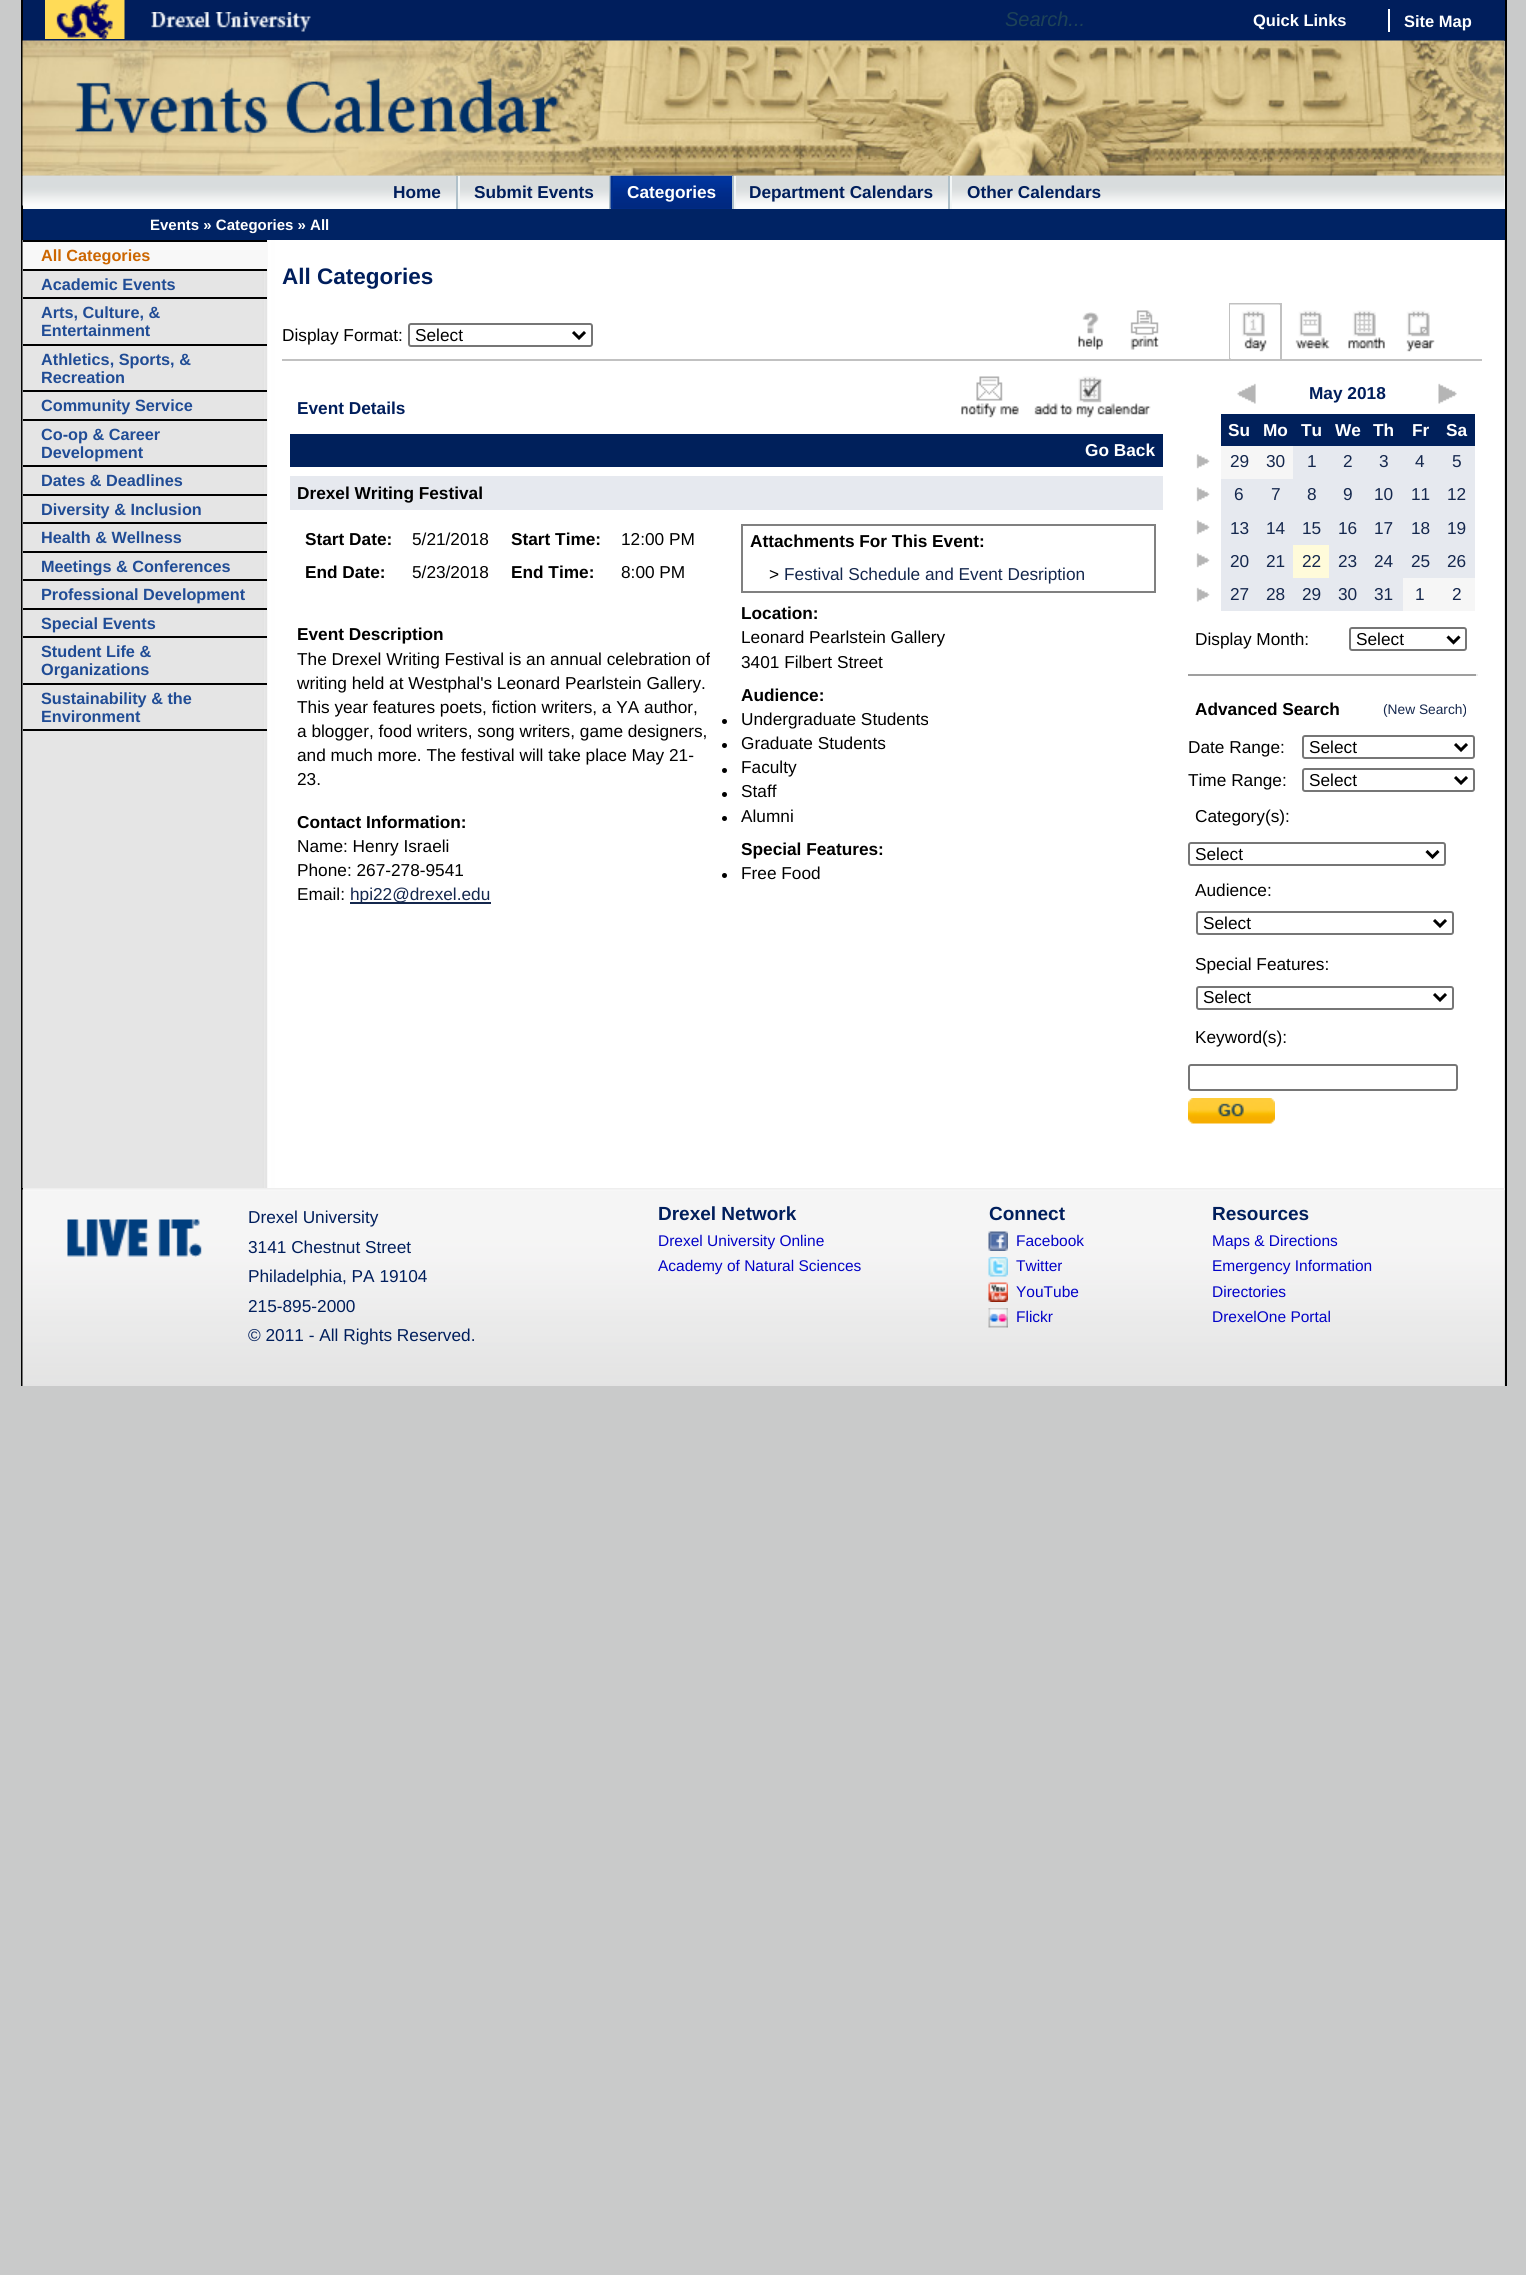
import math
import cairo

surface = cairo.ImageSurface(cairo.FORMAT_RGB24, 1526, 2275)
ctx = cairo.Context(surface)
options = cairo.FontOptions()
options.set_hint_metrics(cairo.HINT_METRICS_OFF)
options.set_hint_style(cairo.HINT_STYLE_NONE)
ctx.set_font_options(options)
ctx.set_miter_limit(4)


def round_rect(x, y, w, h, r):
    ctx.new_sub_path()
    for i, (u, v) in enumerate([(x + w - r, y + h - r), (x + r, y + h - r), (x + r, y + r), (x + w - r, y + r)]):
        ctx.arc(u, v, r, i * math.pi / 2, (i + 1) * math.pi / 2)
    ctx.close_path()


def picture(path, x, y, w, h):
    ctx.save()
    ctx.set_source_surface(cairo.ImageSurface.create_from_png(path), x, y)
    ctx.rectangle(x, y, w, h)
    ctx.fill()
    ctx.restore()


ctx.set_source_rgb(0.788, 0.792, 0.792)
ctx.paint()
ctx.set_source_rgb(0, 0, 0)
ctx.rectangle(1505, 0, 2, 1386)
ctx.fill()
ctx.rectangle(21, 0, 2, 1386)
ctx.fill()
ctx.set_source_rgb(0, 0.118, 0.361)
ctx.rectangle(23, 0, 1482, 41)
ctx.fill()
picture("img1.png", 45, 0, 80, 39)
picture("img2.png", 151, 12, 160, 20)
ctx.select_font_face("Liberation Sans", cairo.FONT_SLANT_ITALIC)
ctx.set_font_size(20)
ctx.set_source_rgb(0.114, 0.259, 0.341)
ctx.move_to(1005, 26)
ctx.show_text("Search...")
ctx.select_font_face("Liberation Sans", cairo.FONT_SLANT_NORMAL, cairo.FONT_WEIGHT_BOLD)
ctx.set_font_size(16.5)
ctx.set_source_rgb(1, 1, 1)
ctx.move_to(1253, 26)
ctx.show_text("Quick Links")
ctx.rectangle(1388, 9, 2, 23)
ctx.fill()
ctx.move_to(1404, 27)
ctx.show_text("Site Map")
ctx.set_source_rgb(0.984, 0.988, 0.988)
ctx.rectangle(23, 176, 1482, 33)
ctx.fill()
picture("img5.png", 22, 175, 1483, 31)
ctx.set_source_rgb(0.69, 0.757, 0.792)
ctx.rectangle(609, 176, 2, 33)
ctx.fill()
ctx.set_source_rgb(0, 0.18, 0.553)
ctx.rectangle(613, 208, 119, 1)
ctx.fill()
picture("img6.png", 610, 175, 124, 34)
picture("img3.png", 22, 40, 1483, 136)
picture("img4.png", 75, 78, 484, 56)
ctx.set_source_rgb(0.69, 0.757, 0.792)
ctx.rectangle(456, 176, 2, 33)
ctx.fill()
ctx.set_font_size(17.25)
ctx.set_source_rgb(0, 0.118, 0.361)
ctx.move_to(393, 198)
ctx.show_text("Home")
ctx.set_source_rgb(0.953, 0.961, 0.961)
ctx.rectangle(458, 176, 2, 33)
ctx.fill()
ctx.set_source_rgb(0, 0.118, 0.361)
ctx.move_to(474, 198)
ctx.show_text("Submit Events")
ctx.set_source_rgb(0.69, 0.757, 0.792)
ctx.rectangle(732, 176, 2, 33)
ctx.fill()
ctx.set_source_rgb(0, 0.18, 0.553)
ctx.rectangle(611, 176, 2, 33)
ctx.fill()
ctx.set_source_rgb(1, 1, 1)
ctx.move_to(627, 198)
ctx.show_text("Categories")
ctx.set_source_rgb(0.69, 0.757, 0.792)
ctx.rectangle(948, 176, 2, 33)
ctx.fill()
ctx.set_source_rgb(0.953, 0.961, 0.961)
ctx.rectangle(734, 176, 2, 33)
ctx.fill()
ctx.set_source_rgb(0, 0.118, 0.361)
ctx.move_to(749, 198)
ctx.show_text("Department Calendars")
ctx.set_source_rgb(0.953, 0.961, 0.961)
ctx.rectangle(950, 176, 2, 33)
ctx.fill()
ctx.set_source_rgb(0, 0.118, 0.361)
ctx.move_to(967, 198)
ctx.show_text("Other Calendars")
ctx.set_source_rgb(0, 0.137, 0.392)
ctx.rectangle(23, 209, 1482, 31)
ctx.fill()
ctx.set_font_size(15)
ctx.set_source_rgb(1, 1, 1)
ctx.move_to(150, 230)
ctx.show_text("Events » Categories » All")
picture("img7.png", 22, 240, 1483, 948)
ctx.set_source_rgb(0, 0, 0)
ctx.rectangle(23, 240, 244, 2)
ctx.fill()
ctx.rectangle(23, 269, 244, 2)
ctx.fill()
ctx.set_source_rgb(0.969, 0.969, 0.969)
ctx.rectangle(23, 242, 244, 27)
ctx.fill()
ctx.set_font_size(16.25)
ctx.set_source_rgb(0.8, 0.4, 0)
ctx.move_to(41, 261)
ctx.show_text("All Categories")
ctx.set_source_rgb(0, 0, 0)
ctx.rectangle(23, 297, 244, 2)
ctx.fill()
ctx.set_source_rgb(0.125, 0.298, 0.584)
ctx.move_to(41, 290)
ctx.show_text("Academic Events")
ctx.set_source_rgb(0, 0, 0)
ctx.rectangle(23, 344, 244, 2)
ctx.fill()
ctx.set_source_rgb(0.125, 0.298, 0.584)
ctx.move_to(41, 318)
ctx.show_text("Arts, Culture, &")
ctx.move_to(41, 336)
ctx.show_text("Entertainment")
ctx.set_source_rgb(0, 0, 0)
ctx.rectangle(23, 390, 244, 2)
ctx.fill()
ctx.set_source_rgb(0.125, 0.298, 0.584)
ctx.move_to(41, 365)
ctx.show_text("Athletics, Sports, &")
ctx.move_to(41, 383)
ctx.show_text("Recreation")
ctx.set_source_rgb(0, 0, 0)
ctx.rectangle(23, 419, 244, 2)
ctx.fill()
ctx.set_source_rgb(0.125, 0.298, 0.584)
ctx.move_to(41, 411)
ctx.show_text("Community Service")
ctx.set_source_rgb(0, 0, 0)
ctx.rectangle(23, 465, 244, 2)
ctx.fill()
ctx.set_source_rgb(0.125, 0.298, 0.584)
ctx.move_to(41, 440)
ctx.show_text("Co-op & Career")
ctx.move_to(41, 458)
ctx.show_text("Development")
ctx.set_source_rgb(0, 0, 0)
ctx.rectangle(23, 494, 244, 2)
ctx.fill()
ctx.set_source_rgb(0.125, 0.298, 0.584)
ctx.move_to(41, 486)
ctx.show_text("Dates & Deadlines")
ctx.set_source_rgb(0, 0, 0)
ctx.rectangle(23, 522, 244, 2)
ctx.fill()
ctx.set_source_rgb(0.125, 0.298, 0.584)
ctx.move_to(41, 515)
ctx.show_text("Diversity & Inclusion")
ctx.set_source_rgb(0, 0, 0)
ctx.rectangle(23, 551, 244, 2)
ctx.fill()
ctx.set_source_rgb(0.125, 0.298, 0.584)
ctx.move_to(41, 543)
ctx.show_text("Health & Wellness")
ctx.set_source_rgb(0, 0, 0)
ctx.rectangle(23, 579, 244, 2)
ctx.fill()
ctx.set_source_rgb(0.125, 0.298, 0.584)
ctx.move_to(41, 572)
ctx.show_text("Meetings & Conferences")
ctx.set_source_rgb(0, 0, 0)
ctx.rectangle(23, 608, 244, 2)
ctx.fill()
ctx.set_source_rgb(0.125, 0.298, 0.584)
ctx.move_to(41, 600)
ctx.show_text("Professional Development")
ctx.set_source_rgb(0, 0, 0)
ctx.rectangle(23, 636, 244, 2)
ctx.fill()
ctx.set_source_rgb(0.125, 0.298, 0.584)
ctx.move_to(41, 629)
ctx.show_text("Special Events")
ctx.set_source_rgb(0, 0, 0)
ctx.rectangle(23, 683, 244, 2)
ctx.fill()
ctx.set_source_rgb(0.125, 0.298, 0.584)
ctx.move_to(41, 657)
ctx.show_text("Student Life &")
ctx.move_to(41, 675)
ctx.show_text("Organizations")
ctx.set_source_rgb(0, 0, 0)
ctx.rectangle(23, 729, 244, 2)
ctx.fill()
ctx.set_source_rgb(0.125, 0.298, 0.584)
ctx.move_to(41, 704)
ctx.show_text("Sustainability & the")
ctx.move_to(41, 722)
ctx.show_text("Environment")
ctx.set_source_rgb(0.757, 0.757, 0.757)
ctx.rectangle(282, 359, 1200, 2)
ctx.fill()
ctx.set_font_size(22.5)
ctx.set_source_rgb(0, 0.118, 0.361)
ctx.move_to(282, 284)
ctx.show_text("All Categories")
ctx.select_font_face("Liberation Sans")
ctx.set_font_size(17.25)
ctx.set_source_rgb(0, 0, 0)
ctx.move_to(282, 341)
ctx.show_text("Display Format:")
round_rect(409, 324, 183, 22, 2)
ctx.set_source_rgb(0.463, 0.463, 0.463)
ctx.stroke()
ctx.new_path()
ctx.move_to(573, 332)
ctx.line_to(579, 338)
ctx.line_to(585, 332)
ctx.set_source_rgb(0, 0, 0)
ctx.set_line_width(3)
ctx.stroke()
ctx.move_to(415, 341)
ctx.show_text("Select")
picture("img8.png", 1078, 312, 25, 38)
picture("img9.png", 1130, 310, 29, 40)
ctx.set_source_rgb(0.757, 0.757, 0.757)
ctx.rectangle(1229, 303, 52, 2)
ctx.fill()
ctx.rectangle(1280, 303, 2, 56)
ctx.fill()
ctx.rectangle(1229, 303, 2, 56)
ctx.fill()
picture("img10.png", 1230, 304, 50, 55)
picture("img11.png", 1295, 310, 35, 39)
picture("img12.png", 1348, 310, 37, 39)
picture("img13.png", 1406, 310, 29, 42)
ctx.select_font_face("Liberation Sans", cairo.FONT_SLANT_NORMAL, cairo.FONT_WEIGHT_BOLD)
ctx.set_source_rgb(0, 0.118, 0.361)
ctx.move_to(297, 414)
ctx.show_text("Event Details")
picture("img14.png", 961, 376, 58, 42)
picture("img15.png", 1034, 376, 117, 42)
ctx.set_source_rgb(0, 0.125, 0.357)
ctx.rectangle(290, 434, 873, 33)
ctx.fill()
ctx.set_source_rgb(1, 1, 1)
ctx.move_to(1085, 456)
ctx.show_text("Go Back")
ctx.set_source_rgb(0.902, 0.914, 0.937)
ctx.rectangle(290, 476, 873, 34)
ctx.fill()
ctx.set_source_rgb(0, 0, 0)
ctx.move_to(297, 499)
ctx.show_text("Drexel Writing Festival")
ctx.move_to(305, 545)
ctx.show_text("Start Date:")
ctx.select_font_face("Liberation Sans")
ctx.move_to(412, 545)
ctx.show_text("5/21/2018")
ctx.select_font_face("Liberation Sans", cairo.FONT_SLANT_NORMAL, cairo.FONT_WEIGHT_BOLD)
ctx.move_to(511, 545)
ctx.show_text("Start Time:")
ctx.select_font_face("Liberation Sans")
ctx.move_to(621, 545)
ctx.show_text("12:00 PM")
ctx.select_font_face("Liberation Sans", cairo.FONT_SLANT_NORMAL, cairo.FONT_WEIGHT_BOLD)
ctx.move_to(305, 578)
ctx.show_text("End Date:")
ctx.select_font_face("Liberation Sans")
ctx.move_to(412, 578)
ctx.show_text("5/23/2018")
ctx.select_font_face("Liberation Sans", cairo.FONT_SLANT_NORMAL, cairo.FONT_WEIGHT_BOLD)
ctx.move_to(511, 578)
ctx.show_text("End Time:")
ctx.select_font_face("Liberation Sans")
ctx.move_to(621, 578)
ctx.show_text("8:00 PM")
ctx.select_font_face("Liberation Sans", cairo.FONT_SLANT_NORMAL, cairo.FONT_WEIGHT_BOLD)
ctx.move_to(297, 640)
ctx.show_text("Event Description")
ctx.select_font_face("Liberation Sans")
ctx.move_to(297, 665)
ctx.show_text("The Drexel Writing Festival is an annual celebration of")
ctx.move_to(297, 689)
ctx.show_text("writing held at Westphal's Leonard Pearlstein Gallery.")
ctx.move_to(297, 713)
ctx.show_text("This year features poets, fiction writers, a YA author,")
ctx.move_to(297, 737)
ctx.show_text("a blogger, food writers, song writers, game designers,")
ctx.move_to(297, 761)
ctx.show_text("and much more. The festival will take place May 21-")
ctx.move_to(297, 785)
ctx.show_text("23.")
ctx.select_font_face("Liberation Sans", cairo.FONT_SLANT_NORMAL, cairo.FONT_WEIGHT_BOLD)
ctx.move_to(297, 828)
ctx.show_text("Contact Information:")
ctx.select_font_face("Liberation Sans")
ctx.move_to(297, 852)
ctx.show_text("Name: Henry Israeli")
ctx.move_to(297, 876)
ctx.show_text("Phone: 267-278-9541")
ctx.move_to(297, 900)
ctx.show_text("Email:")
ctx.set_source_rgb(0.082, 0.153, 0.302)
ctx.rectangle(350, 902, 141, 2)
ctx.fill()
ctx.move_to(350, 900)
ctx.show_text("hpi22@drexel.edu")
ctx.set_source_rgb(0.502, 0.502, 0.502)
ctx.rectangle(741, 524, 414, 2)
ctx.fill()
ctx.rectangle(1154, 524, 2, 69)
ctx.fill()
ctx.rectangle(741, 591, 414, 2)
ctx.fill()
ctx.rectangle(741, 524, 2, 69)
ctx.fill()
ctx.select_font_face("Liberation Sans", cairo.FONT_SLANT_NORMAL, cairo.FONT_WEIGHT_BOLD)
ctx.set_source_rgb(0, 0, 0)
ctx.move_to(750, 547)
ctx.show_text("Attachments For This Event:")
ctx.select_font_face("Liberation Sans")
ctx.move_to(769, 580)
ctx.show_text(">")
ctx.set_source_rgb(0.082, 0.153, 0.302)
ctx.move_to(784, 580)
ctx.show_text("Festival Schedule and Event Desription")
ctx.select_font_face("Liberation Sans", cairo.FONT_SLANT_NORMAL, cairo.FONT_WEIGHT_BOLD)
ctx.set_source_rgb(0, 0, 0)
ctx.move_to(741, 619)
ctx.show_text("Location:")
ctx.select_font_face("Liberation Sans")
ctx.move_to(741, 643)
ctx.show_text("Leonard Pearlstein Gallery")
ctx.move_to(741, 668)
ctx.show_text("3401 Filbert Street")
ctx.select_font_face("Liberation Sans", cairo.FONT_SLANT_NORMAL, cairo.FONT_WEIGHT_BOLD)
ctx.move_to(741, 701)
ctx.show_text("Audience:")
ctx.new_path()
ctx.arc(724.5, 721.5, 2.5, 0, 2 * math.pi)
ctx.fill()
ctx.select_font_face("Liberation Sans")
ctx.move_to(741, 725)
ctx.show_text("Undergraduate Students")
ctx.new_path()
ctx.arc(724.5, 745.5, 2.5, 0, 2 * math.pi)
ctx.fill()
ctx.move_to(741, 749)
ctx.show_text("Graduate Students")
ctx.new_path()
ctx.arc(724.5, 770.5, 2.5, 0, 2 * math.pi)
ctx.fill()
ctx.move_to(741, 773)
ctx.show_text("Faculty")
ctx.new_path()
ctx.arc(724.5, 794.5, 2.5, 0, 2 * math.pi)
ctx.fill()
ctx.move_to(741, 797)
ctx.show_text("Staff")
ctx.new_path()
ctx.arc(724.5, 818.5, 2.5, 0, 2 * math.pi)
ctx.fill()
ctx.move_to(741, 822)
ctx.show_text("Alumni")
ctx.select_font_face("Liberation Sans", cairo.FONT_SLANT_NORMAL, cairo.FONT_WEIGHT_BOLD)
ctx.move_to(741, 855)
ctx.show_text("Special Features:")
ctx.new_path()
ctx.arc(724.5, 875.5, 2.5, 0, 2 * math.pi)
ctx.fill()
ctx.select_font_face("Liberation Sans")
ctx.move_to(741, 879)
ctx.show_text("Free Food")
picture("img16.png", 1237, 383, 19, 21)
ctx.select_font_face("Liberation Sans", cairo.FONT_SLANT_NORMAL, cairo.FONT_WEIGHT_BOLD)
ctx.set_source_rgb(0, 0.118, 0.361)
ctx.move_to(1309, 399)
ctx.show_text("May 2018")
picture("img17.png", 1438, 383, 19, 21)
ctx.set_source_rgb(0, 0.125, 0.357)
ctx.rectangle(1221, 414, 254, 32)
ctx.fill()
ctx.set_source_rgb(1, 1, 1)
ctx.move_to(1228, 436)
ctx.show_text("Su")
ctx.move_to(1263, 436)
ctx.show_text("Mo")
ctx.move_to(1301, 436)
ctx.show_text("Tu")
ctx.move_to(1335, 436)
ctx.show_text("We")
ctx.move_to(1373, 436)
ctx.show_text("Th")
ctx.move_to(1412, 436)
ctx.show_text("Fr")
ctx.move_to(1446, 436)
ctx.show_text("Sa")
picture("img18.png", 1196, 454, 14, 15)
ctx.set_source_rgb(0.961, 0.961, 0.961)
ctx.rectangle(1221, 446, 72, 33)
ctx.fill()
ctx.select_font_face("Liberation Sans")
ctx.set_source_rgb(0.082, 0.153, 0.302)
ctx.move_to(1230, 467)
ctx.show_text("29")
ctx.move_to(1266, 467)
ctx.show_text("30")
ctx.set_source_rgb(0.902, 0.914, 0.937)
ctx.rectangle(1293, 446, 182, 33)
ctx.fill()
ctx.set_source_rgb(0.082, 0.153, 0.302)
ctx.move_to(1307, 467)
ctx.show_text("1")
ctx.move_to(1343, 467)
ctx.show_text("2")
ctx.move_to(1379, 467)
ctx.show_text("3")
ctx.move_to(1415, 467)
ctx.show_text("4")
ctx.move_to(1452, 467)
ctx.show_text("5")
picture("img18.png", 1196, 487, 14, 15)
ctx.set_source_rgb(0.902, 0.914, 0.937)
ctx.rectangle(1221, 479, 254, 33)
ctx.fill()
ctx.set_source_rgb(0.082, 0.153, 0.302)
ctx.move_to(1234, 500)
ctx.show_text("6")
ctx.move_to(1271, 500)
ctx.show_text("7")
ctx.move_to(1307, 500)
ctx.show_text("8")
ctx.move_to(1343, 500)
ctx.show_text("9")
ctx.move_to(1374, 500)
ctx.show_text("10")
ctx.move_to(1411, 500)
ctx.show_text("11")
ctx.move_to(1447, 500)
ctx.show_text("12")
picture("img18.png", 1196, 520, 14, 15)
ctx.set_source_rgb(0.902, 0.914, 0.937)
ctx.rectangle(1221, 512, 254, 33)
ctx.fill()
ctx.set_source_rgb(0.082, 0.153, 0.302)
ctx.move_to(1230, 534)
ctx.show_text("13")
ctx.move_to(1266, 534)
ctx.show_text("14")
ctx.move_to(1302, 534)
ctx.show_text("15")
ctx.move_to(1338, 534)
ctx.show_text("16")
ctx.move_to(1374, 534)
ctx.show_text("17")
ctx.move_to(1411, 534)
ctx.show_text("18")
ctx.move_to(1447, 534)
ctx.show_text("19")
picture("img18.png", 1196, 553, 14, 15)
ctx.set_source_rgb(0.902, 0.914, 0.937)
ctx.rectangle(1221, 545, 72, 33)
ctx.fill()
ctx.set_source_rgb(0.082, 0.153, 0.302)
ctx.move_to(1230, 567)
ctx.show_text("20")
ctx.move_to(1266, 567)
ctx.show_text("21")
ctx.set_source_rgb(1, 0.984, 0.855)
ctx.rectangle(1293, 545, 36, 33)
ctx.fill()
ctx.set_source_rgb(0.082, 0.153, 0.302)
ctx.move_to(1302, 567)
ctx.show_text("22")
ctx.set_source_rgb(0.902, 0.914, 0.937)
ctx.rectangle(1329, 545, 146, 33)
ctx.fill()
ctx.set_source_rgb(0.082, 0.153, 0.302)
ctx.move_to(1338, 567)
ctx.show_text("23")
ctx.move_to(1374, 567)
ctx.show_text("24")
ctx.move_to(1411, 567)
ctx.show_text("25")
ctx.move_to(1447, 567)
ctx.show_text("26")
picture("img19.png", 1196, 587, 14, 15)
ctx.set_source_rgb(0.902, 0.914, 0.937)
ctx.rectangle(1221, 578, 182, 33)
ctx.fill()
ctx.set_source_rgb(0.082, 0.153, 0.302)
ctx.move_to(1230, 600)
ctx.show_text("27")
ctx.move_to(1266, 600)
ctx.show_text("28")
ctx.move_to(1302, 600)
ctx.show_text("29")
ctx.move_to(1338, 600)
ctx.show_text("30")
ctx.move_to(1374, 600)
ctx.show_text("31")
ctx.set_source_rgb(0.961, 0.961, 0.961)
ctx.rectangle(1403, 578, 72, 33)
ctx.fill()
ctx.set_source_rgb(0.082, 0.153, 0.302)
ctx.move_to(1415, 600)
ctx.show_text("1")
ctx.move_to(1452, 600)
ctx.show_text("2")
ctx.set_source_rgb(0, 0, 0)
ctx.move_to(1195, 645)
ctx.show_text("Display Month:")
round_rect(1350, 628, 116, 22, 2)
ctx.set_source_rgb(0.463, 0.463, 0.463)
ctx.set_line_width(2)
ctx.stroke()
ctx.new_path()
ctx.move_to(1447.5, 636.5)
ctx.line_to(1453.5, 642.5)
ctx.line_to(1459.5, 636.5)
ctx.set_source_rgb(0, 0, 0)
ctx.set_line_width(3)
ctx.stroke()
ctx.move_to(1356, 645)
ctx.show_text("Select")
ctx.set_source_rgb(0.624, 0.624, 0.624)
ctx.rectangle(1188, 674, 290, 2)
ctx.fill()
ctx.set_source_rgb(0.933, 0.933, 0.933)
ctx.rectangle(1476, 674, 2, 2)
ctx.fill()
ctx.select_font_face("Liberation Sans", cairo.FONT_SLANT_NORMAL, cairo.FONT_WEIGHT_BOLD)
ctx.set_source_rgb(0, 0, 0)
ctx.move_to(1195, 715)
ctx.show_text("Advanced Search")
ctx.select_font_face("Liberation Sans")
ctx.set_font_size(13.75)
ctx.set_source_rgb(0.082, 0.153, 0.302)
ctx.move_to(1383, 714)
ctx.show_text("(New Search)")
ctx.set_font_size(17.25)
ctx.set_source_rgb(0, 0, 0)
ctx.move_to(1188, 753)
ctx.show_text("Date Range:")
round_rect(1303, 736, 171, 22, 2)
ctx.set_source_rgb(0.463, 0.463, 0.463)
ctx.set_line_width(2)
ctx.stroke()
ctx.new_path()
ctx.move_to(1455, 744)
ctx.line_to(1461, 750)
ctx.line_to(1467, 744)
ctx.set_source_rgb(0, 0, 0)
ctx.set_line_width(3)
ctx.stroke()
ctx.move_to(1309, 753)
ctx.show_text("Select")
ctx.move_to(1188, 786)
ctx.show_text("Time Range:")
round_rect(1303, 769, 171, 22, 2)
ctx.set_source_rgb(0.463, 0.463, 0.463)
ctx.set_line_width(2)
ctx.stroke()
ctx.new_path()
ctx.move_to(1455, 777)
ctx.line_to(1461, 783)
ctx.line_to(1467, 777)
ctx.set_source_rgb(0, 0, 0)
ctx.set_line_width(3)
ctx.stroke()
ctx.move_to(1309, 786)
ctx.show_text("Select")
ctx.move_to(1195, 822)
ctx.show_text("Category(s):")
round_rect(1189, 843, 256, 22, 2)
ctx.set_source_rgb(0.463, 0.463, 0.463)
ctx.set_line_width(2)
ctx.stroke()
ctx.new_path()
ctx.move_to(1426.5, 851)
ctx.line_to(1432.5, 857)
ctx.line_to(1438.5, 851)
ctx.set_source_rgb(0, 0, 0)
ctx.set_line_width(3)
ctx.stroke()
ctx.move_to(1195, 860)
ctx.show_text("Select")
ctx.move_to(1195, 896)
ctx.show_text("Audience:")
round_rect(1197, 912, 256, 22, 2)
ctx.set_source_rgb(0.463, 0.463, 0.463)
ctx.set_line_width(2)
ctx.stroke()
ctx.new_path()
ctx.move_to(1434, 920)
ctx.line_to(1440, 926)
ctx.line_to(1446, 920)
ctx.set_source_rgb(0, 0, 0)
ctx.set_line_width(3)
ctx.stroke()
ctx.move_to(1203, 929)
ctx.show_text("Select")
ctx.move_to(1195, 970)
ctx.show_text("Special Features:")
round_rect(1197, 987, 256, 22, 2)
ctx.set_source_rgb(0.463, 0.463, 0.463)
ctx.set_line_width(2)
ctx.stroke()
ctx.new_path()
ctx.move_to(1434, 994)
ctx.line_to(1440, 1000)
ctx.line_to(1446, 994)
ctx.set_source_rgb(0, 0, 0)
ctx.set_line_width(3)
ctx.stroke()
ctx.move_to(1203, 1003)
ctx.show_text("Select")
ctx.move_to(1195, 1043)
ctx.show_text("Keyword(s):")
round_rect(1189, 1065, 268, 25, 2)
ctx.set_source_rgb(0.463, 0.463, 0.463)
ctx.set_line_width(2)
ctx.stroke()
picture("img20.png", 1188, 1098, 87, 26)
ctx.set_source_rgb(0.933, 0.933, 0.933)
ctx.rectangle(23, 1188, 1482, 2)
ctx.fill()
picture("img21.png", 22, 1189, 1483, 197)
picture("img22.png", 67, 1219, 135, 38)
ctx.set_source_rgb(0, 0.118, 0.361)
ctx.move_to(248, 1223)
ctx.show_text("Drexel University")
ctx.move_to(248, 1253)
ctx.show_text("3141 Chestnut Street")
ctx.move_to(248, 1282)
ctx.show_text("Philadelphia, PA 19104")
ctx.move_to(248, 1312)
ctx.show_text("215-895-2000")
ctx.move_to(248, 1341)
ctx.show_text("© 2011 - All Rights Reserved.")
ctx.select_font_face("Liberation Sans", cairo.FONT_SLANT_NORMAL, cairo.FONT_WEIGHT_BOLD)
ctx.set_font_size(19)
ctx.move_to(658, 1220)
ctx.show_text("Drexel Network")
ctx.select_font_face("Liberation Sans")
ctx.set_font_size(15.5)
ctx.set_source_rgb(0.008, 0.008, 0.78)
ctx.move_to(658, 1246)
ctx.show_text("Drexel University Online")
ctx.move_to(658, 1271)
ctx.show_text("Academy of Natural Sciences")
ctx.select_font_face("Liberation Sans", cairo.FONT_SLANT_NORMAL, cairo.FONT_WEIGHT_BOLD)
ctx.set_font_size(19)
ctx.set_source_rgb(0, 0.118, 0.361)
ctx.move_to(989, 1220)
ctx.show_text("Connect")
picture("img23.png", 988, 1231, 20, 20)
ctx.select_font_face("Liberation Sans")
ctx.set_font_size(15.5)
ctx.set_source_rgb(0.008, 0.008, 0.78)
ctx.move_to(1016, 1246)
ctx.show_text("Facebook")
picture("img24.png", 988, 1257, 20, 20)
ctx.move_to(1016, 1271)
ctx.show_text("Twitter")
picture("img25.png", 988, 1282, 20, 20)
ctx.move_to(1016, 1297)
ctx.show_text("YouTube")
picture("img26.png", 988, 1308, 20, 20)
ctx.move_to(1016, 1322)
ctx.show_text("Flickr")
ctx.select_font_face("Liberation Sans", cairo.FONT_SLANT_NORMAL, cairo.FONT_WEIGHT_BOLD)
ctx.set_font_size(19)
ctx.set_source_rgb(0, 0.118, 0.361)
ctx.move_to(1212, 1220)
ctx.show_text("Resources")
ctx.select_font_face("Liberation Sans")
ctx.set_font_size(15.5)
ctx.set_source_rgb(0.008, 0.008, 0.78)
ctx.move_to(1212, 1246)
ctx.show_text("Maps & Directions")
ctx.move_to(1212, 1271)
ctx.show_text("Emergency Information")
ctx.move_to(1212, 1297)
ctx.show_text("Directories")
ctx.move_to(1212, 1322)
ctx.show_text("DrexelOne Portal")
surface.write_to_png("page.png")
